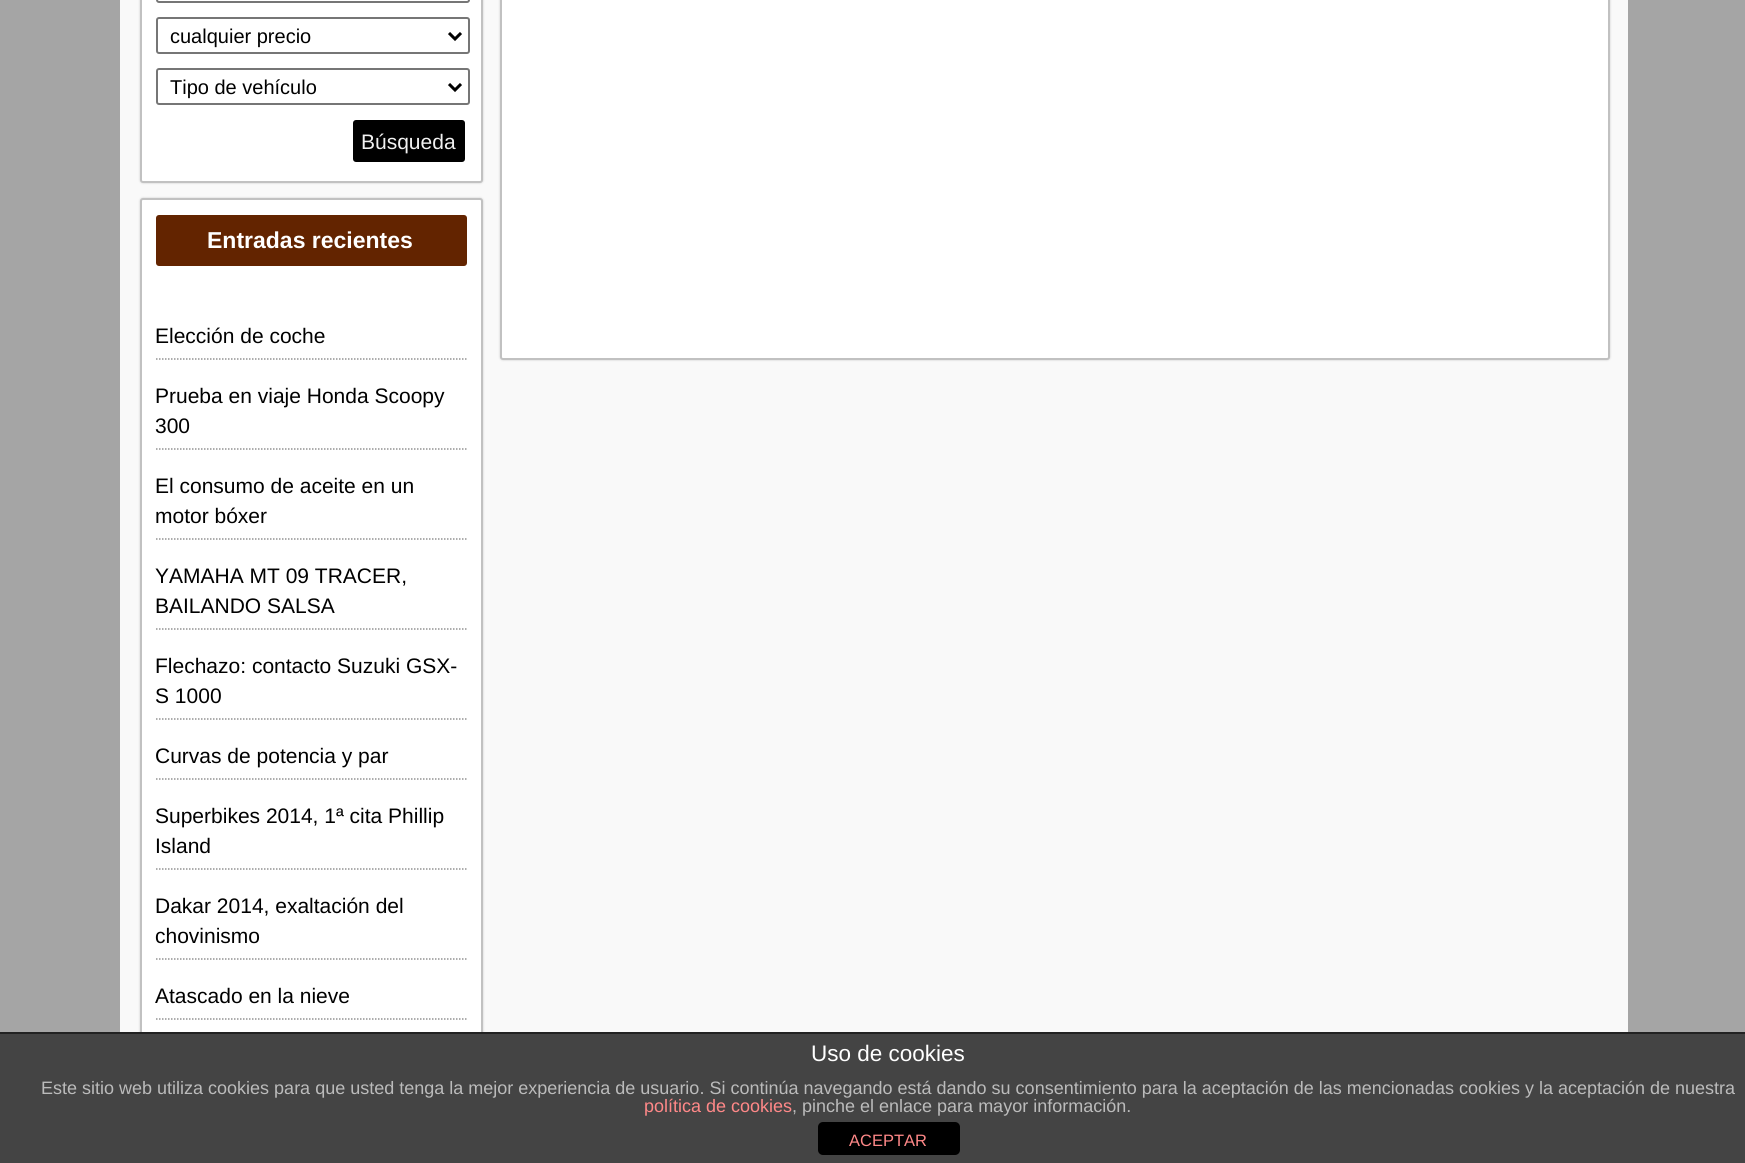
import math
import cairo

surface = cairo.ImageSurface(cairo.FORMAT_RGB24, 1745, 1163)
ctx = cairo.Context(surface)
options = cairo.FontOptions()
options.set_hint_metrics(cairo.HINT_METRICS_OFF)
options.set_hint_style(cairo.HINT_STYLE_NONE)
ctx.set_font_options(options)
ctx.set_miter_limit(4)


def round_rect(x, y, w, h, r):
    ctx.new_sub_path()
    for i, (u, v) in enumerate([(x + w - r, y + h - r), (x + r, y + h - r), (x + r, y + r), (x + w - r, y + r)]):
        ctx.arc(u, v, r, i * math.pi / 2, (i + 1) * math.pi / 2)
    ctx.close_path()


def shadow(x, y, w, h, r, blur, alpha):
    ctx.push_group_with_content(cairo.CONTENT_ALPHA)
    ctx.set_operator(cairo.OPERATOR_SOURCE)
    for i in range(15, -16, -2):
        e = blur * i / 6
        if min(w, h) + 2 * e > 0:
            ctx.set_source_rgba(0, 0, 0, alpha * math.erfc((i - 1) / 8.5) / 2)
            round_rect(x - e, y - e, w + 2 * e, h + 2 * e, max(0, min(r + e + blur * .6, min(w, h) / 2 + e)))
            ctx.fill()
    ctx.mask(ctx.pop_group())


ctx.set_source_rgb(0.647, 0.647, 0.647)
ctx.paint()
ctx.set_source_rgb(0.976, 0.976, 0.976)
ctx.rectangle(120, 0, 1508, 1032)
ctx.fill()
ctx.set_source_rgb(0.8, 0.8, 0.8)
shadow(140, -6, 343, 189, 3, 1, 1)
ctx.set_source_rgb(1, 1, 1)
round_rect(141, -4, 341, 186, 2)
ctx.fill_preserve()
ctx.set_source_rgb(0.757, 0.757, 0.757)
ctx.stroke()
round_rect(157, -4, 312, 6, 2)
ctx.set_source_rgb(0.463, 0.463, 0.463)
ctx.stroke()
round_rect(157, 18, 312, 35, 2)
ctx.stroke()
ctx.new_path()
ctx.move_to(449, 33)
ctx.line_to(455, 39)
ctx.line_to(461, 33)
ctx.set_source_rgb(0, 0, 0)
ctx.set_line_width(3)
ctx.stroke()
ctx.select_font_face("Liberation Sans")
ctx.set_font_size(20)
ctx.move_to(170, 43)
ctx.show_text("cualquier precio")
round_rect(157, 69, 312, 35, 2)
ctx.set_source_rgb(0.463, 0.463, 0.463)
ctx.set_line_width(2)
ctx.stroke()
ctx.new_path()
ctx.move_to(449, 84)
ctx.line_to(455, 90)
ctx.line_to(461, 84)
ctx.set_source_rgb(0, 0, 0)
ctx.set_line_width(3)
ctx.stroke()
ctx.move_to(170, 94)
ctx.show_text("Tipo de vehículo")
round_rect(353, 120, 112, 42, 3)
ctx.fill()
ctx.set_font_size(21)
ctx.set_source_rgb(0.945, 0.945, 0.945)
ctx.move_to(361, 149)
ctx.show_text("Búsqueda")
ctx.set_source_rgb(0.8, 0.8, 0.8)
shadow(140, 198, 343, 929, 3, 1, 1)
ctx.set_source_rgb(1, 1, 1)
round_rect(141, 199, 341, 927, 2)
ctx.fill_preserve()
ctx.set_source_rgb(0.757, 0.757, 0.757)
ctx.set_line_width(2)
ctx.stroke()
ctx.set_source_rgb(0.388, 0.141, 0)
round_rect(156, 215, 311, 51, 3)
ctx.fill()
ctx.select_font_face("Liberation Sans", cairo.FONT_SLANT_NORMAL, cairo.FONT_WEIGHT_BOLD)
ctx.set_font_size(23)
ctx.set_source_rgb(1, 1, 1)
ctx.move_to(207, 248)
ctx.show_text("Entradas recientes")
ctx.new_path()
ctx.move_to(156, 359)
ctx.line_to(466.5, 359)
ctx.set_source_rgb(0.573, 0.573, 0.573)
ctx.set_line_width(1.5)
ctx.set_dash([1.5, 1.5])
ctx.stroke()
ctx.select_font_face("Liberation Sans")
ctx.set_font_size(21)
ctx.set_source_rgb(0, 0, 0)
ctx.move_to(155, 343)
ctx.show_text("Elección de coche")
ctx.new_path()
ctx.move_to(156, 449)
ctx.line_to(466.5, 449)
ctx.set_source_rgb(0.573, 0.573, 0.573)
ctx.stroke()
ctx.set_source_rgb(0, 0, 0)
ctx.move_to(155, 403)
ctx.show_text("Prueba en viaje Honda Scoopy")
ctx.move_to(155, 433)
ctx.show_text("300")
ctx.new_path()
ctx.move_to(156, 539)
ctx.line_to(466.5, 539)
ctx.set_source_rgb(0.573, 0.573, 0.573)
ctx.stroke()
ctx.set_source_rgb(0, 0, 0)
ctx.move_to(155, 493)
ctx.show_text("El consumo de aceite en un")
ctx.move_to(155, 523)
ctx.show_text("motor bóxer")
ctx.new_path()
ctx.move_to(156, 629)
ctx.line_to(466.5, 629)
ctx.set_source_rgb(0.573, 0.573, 0.573)
ctx.stroke()
ctx.set_source_rgb(0, 0, 0)
ctx.move_to(155, 583)
ctx.show_text("YAMAHA MT 09 TRACER,")
ctx.move_to(155, 613)
ctx.show_text("BAILANDO SALSA")
ctx.new_path()
ctx.move_to(156, 719)
ctx.line_to(466.5, 719)
ctx.set_source_rgb(0.573, 0.573, 0.573)
ctx.stroke()
ctx.set_source_rgb(0, 0, 0)
ctx.move_to(155, 673)
ctx.show_text("Flechazo: contacto Suzuki GSX-")
ctx.move_to(155, 703)
ctx.show_text("S 1000")
ctx.new_path()
ctx.move_to(156, 779)
ctx.line_to(466.5, 779)
ctx.set_source_rgb(0.573, 0.573, 0.573)
ctx.stroke()
ctx.set_source_rgb(0, 0, 0)
ctx.move_to(155, 763)
ctx.show_text("Curvas de potencia y par")
ctx.new_path()
ctx.move_to(156, 869)
ctx.line_to(466.5, 869)
ctx.set_source_rgb(0.573, 0.573, 0.573)
ctx.stroke()
ctx.set_source_rgb(0, 0, 0)
ctx.move_to(155, 823)
ctx.show_text("Superbikes 2014, 1ª cita Phillip")
ctx.move_to(155, 853)
ctx.show_text("Island")
ctx.new_path()
ctx.move_to(156, 959)
ctx.line_to(466.5, 959)
ctx.set_source_rgb(0.573, 0.573, 0.573)
ctx.stroke()
ctx.set_source_rgb(0, 0, 0)
ctx.move_to(155, 913)
ctx.show_text("Dakar 2014, exaltación del")
ctx.move_to(155, 943)
ctx.show_text("chovinismo")
ctx.new_path()
ctx.move_to(156, 1019)
ctx.line_to(466.5, 1019)
ctx.set_source_rgb(0.573, 0.573, 0.573)
ctx.stroke()
ctx.set_source_rgb(0, 0, 0)
ctx.move_to(155, 1003)
ctx.show_text("Atascado en la nieve")
ctx.set_source_rgb(0.8, 0.8, 0.8)
shadow(500, -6, 1110, 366, 3, 1, 1)
ctx.set_source_rgb(1, 1, 1)
round_rect(501, -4, 1108, 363, 2)
ctx.fill_preserve()
ctx.set_source_rgb(0.757, 0.757, 0.757)
ctx.set_line_width(2)
ctx.set_dash([])
ctx.stroke()
ctx.set_source_rgb(0.267, 0.267, 0.267)
ctx.rectangle(0, 1034, 1745, 129)
ctx.fill()
ctx.set_source_rgb(0.133, 0.133, 0.133)
ctx.rectangle(0, 1032, 1745, 2)
ctx.fill()
ctx.set_font_size(22.5)
ctx.set_source_rgb(1, 1, 1)
ctx.move_to(811, 1061)
ctx.show_text("Uso de cookies")
ctx.set_font_size(18)
ctx.set_source_rgb(0.733, 0.733, 0.733)
ctx.move_to(41, 1094)
ctx.show_text("Este sitio web utiliza cookies para que usted tenga la mejor experiencia de usuario. Si continúa navegando está dando su consentimiento para la aceptación de las mencionadas cookies y la aceptación de nuestra")
ctx.set_source_rgb(1, 0.533, 0.533)
ctx.move_to(644, 1112)
ctx.show_text("política de cookies")
ctx.set_source_rgb(0.733, 0.733, 0.733)
ctx.move_to(792, 1112)
ctx.show_text(", pinche el enlace para mayor información.")
ctx.set_source_rgb(0, 0, 0)
round_rect(818, 1122, 142, 33, 5)
ctx.fill()
ctx.set_font_size(16.5)
ctx.set_source_rgb(1, 0.533, 0.533)
ctx.move_to(849, 1146)
ctx.show_text("ACEPTAR")
surface.write_to_png("page.png")
